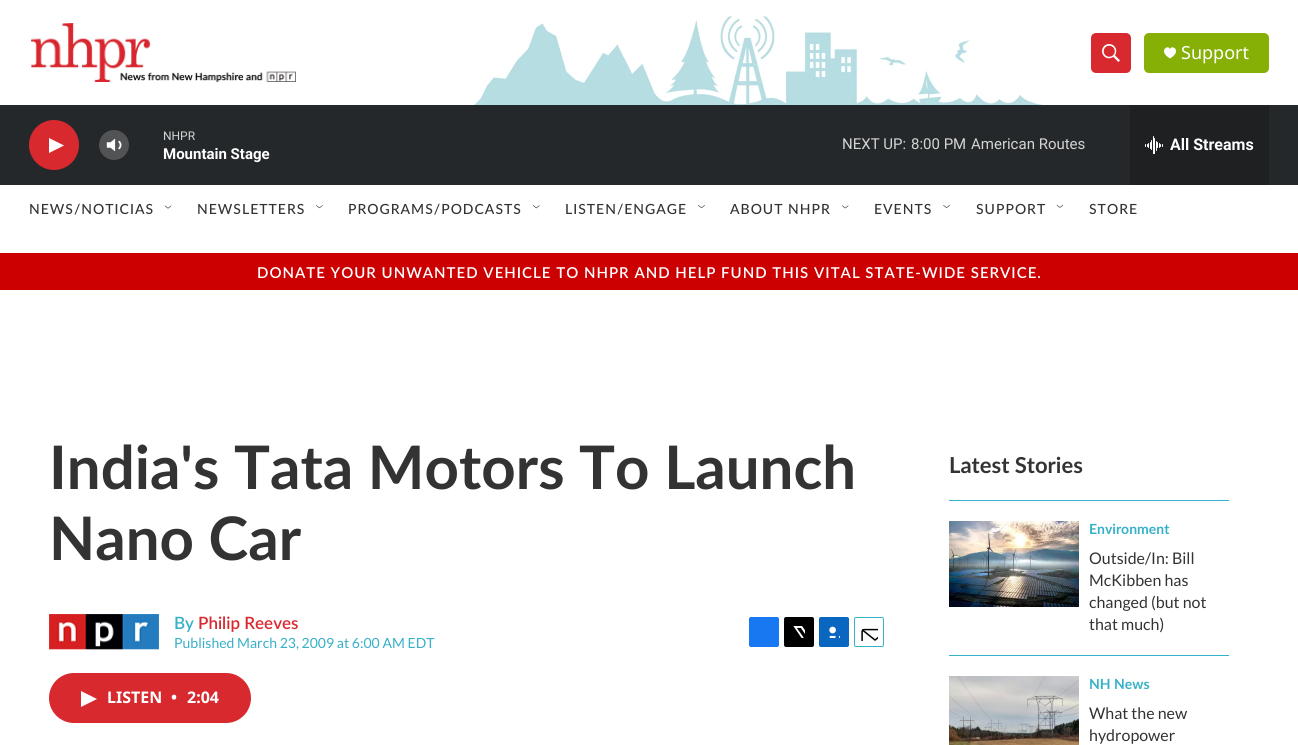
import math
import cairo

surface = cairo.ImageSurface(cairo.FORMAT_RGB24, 1298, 745)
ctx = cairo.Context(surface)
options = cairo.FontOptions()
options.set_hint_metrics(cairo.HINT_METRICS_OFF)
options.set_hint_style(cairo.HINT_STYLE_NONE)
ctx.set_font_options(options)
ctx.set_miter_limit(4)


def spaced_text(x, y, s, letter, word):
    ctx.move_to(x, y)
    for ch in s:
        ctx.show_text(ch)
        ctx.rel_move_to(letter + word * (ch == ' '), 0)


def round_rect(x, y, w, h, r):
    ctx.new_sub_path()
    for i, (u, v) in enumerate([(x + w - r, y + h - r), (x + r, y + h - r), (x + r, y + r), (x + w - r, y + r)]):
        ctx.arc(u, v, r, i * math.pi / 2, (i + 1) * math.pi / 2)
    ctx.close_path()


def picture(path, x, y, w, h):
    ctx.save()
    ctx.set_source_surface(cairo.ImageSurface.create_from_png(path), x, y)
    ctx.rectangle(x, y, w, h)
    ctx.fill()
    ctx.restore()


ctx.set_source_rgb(1, 1, 1)
ctx.paint()
picture("img1.png", 474, 16, 569, 89)
picture("img2.png", 30, 23, 266, 59)
ctx.set_source_rgb(0.847, 0.161, 0.184)
round_rect(1091, 33, 40, 40, 5)
ctx.fill()
picture("img3.png", 1102, 44, 18, 18)
ctx.set_source_rgb(0.529, 0.69, 0.024)
round_rect(1144, 33, 125, 40, 5)
ctx.fill()
ctx.set_source_rgb(1, 1, 1)
ctx.new_path()
ctx.move_to(1170, 49)
ctx.curve_to(1168, 44, 1157.5, 51, 1170, 58.5)
ctx.curve_to(1182.5, 51, 1172, 44, 1170, 49)
ctx.close_path()
ctx.fill()
ctx.select_font_face("Noto Sans")
ctx.set_font_size(18)
ctx.move_to(1181, 59)
ctx.show_text("Support")
ctx.set_source_rgb(0.145, 0.157, 0.165)
ctx.rectangle(0, 105, 1298, 80)
ctx.fill()
ctx.set_source_rgb(0.847, 0.161, 0.184)
ctx.arc(54, 145, 25, 0, 2 * math.pi)
ctx.fill()
ctx.set_source_rgb(1, 1, 1)
ctx.new_path()
ctx.move_to(49, 138)
ctx.line_to(64, 145.5)
ctx.line_to(49, 153)
ctx.close_path()
ctx.fill()
picture("img4.png", 106, 138, 16, 14)
ctx.set_source_rgba(1, 1, 1, 0.2)
ctx.arc(114, 145, 15, 0, 2 * math.pi)
ctx.fill()
ctx.select_font_face("Roboto")
ctx.set_font_size(12)
ctx.set_source_rgb(0.827, 0.831, 0.831)
ctx.move_to(163, 140)
ctx.show_text("NHPR")
ctx.select_font_face("Roboto", cairo.FONT_SLANT_NORMAL, cairo.FONT_WEIGHT_BOLD)
ctx.set_font_size(15)
ctx.set_source_rgb(1, 1, 1)
ctx.move_to(163, 159)
ctx.show_text("Mountain Stage")
ctx.select_font_face("Roboto")
ctx.set_source_rgb(0.827, 0.831, 0.831)
ctx.move_to(842, 149)
ctx.show_text("NEXT UP:")
ctx.move_to(911, 149)
ctx.show_text("8:00 PM")
ctx.move_to(971, 149)
ctx.show_text("American Routes")
ctx.set_source_rgb(0.118, 0.125, 0.133)
ctx.rectangle(1130, 105, 139, 80)
ctx.fill()
picture("img5.png", 1145, 136, 18, 18)
ctx.select_font_face("Roboto", cairo.FONT_SLANT_NORMAL, cairo.FONT_WEIGHT_BOLD)
ctx.set_font_size(16)
ctx.set_source_rgb(1, 1, 1)
ctx.move_to(1170, 150)
ctx.show_text("All Streams")
ctx.select_font_face("Lato Medium")
ctx.set_font_size(14)
ctx.set_source_rgb(0.2, 0.2, 0.2)
spaced_text(29, 214, "NEWS/NOTICIAS", 1, 0)
picture("img6.png", 164, 205, 8, 4)
spaced_text(197, 214, "NEWSLETTERS", 1, 0)
picture("img7.png", 316, 205, 7, 4)
spaced_text(348, 214, "PROGRAMS/PODCASTS", 1, 0)
picture("img8.png", 533, 205, 7, 4)
spaced_text(565, 214, "LISTEN/ENGAGE", 1, 0)
picture("img9.png", 698, 205, 7, 4)
spaced_text(730, 214, "ABOUT NHPR", 1, 0)
picture("img10.png", 842, 205, 7, 4)
spaced_text(874, 214, "EVENTS", 1, 0)
picture("img11.png", 943, 205, 7, 3)
spaced_text(976, 214, "SUPPORT", 1, 0)
picture("img12.png", 1056, 204, 7, 4)
spaced_text(1089, 214, "STORE", 1, 0)
ctx.set_source_rgb(0.8, 0, 0)
ctx.rectangle(0, 253, 1298, 37)
ctx.fill()
ctx.select_font_face("Lato SemiBold")
ctx.set_font_size(15)
ctx.set_source_rgb(1, 1, 1)
spaced_text(257, 278, "DONATE YOUR UNWANTED VEHICLE TO NHPR AND HELP FUND THIS VITAL STATE-WIDE SERVICE.", 1, 0)
ctx.select_font_face("Lato", cairo.FONT_SLANT_NORMAL, cairo.FONT_WEIGHT_BOLD)
ctx.set_font_size(60)
ctx.set_source_rgb(0.2, 0.2, 0.2)
ctx.move_to(49, 489)
ctx.show_text("India's Tata Motors To Launch")
ctx.move_to(49, 560)
ctx.show_text("Nano Car")
picture("img13.png", 49, 614, 110, 36)
ctx.select_font_face("Lato SemiBold")
ctx.set_font_size(17)
ctx.set_source_rgb(0.216, 0.69, 0.788)
ctx.move_to(174, 629)
ctx.show_text("By")
ctx.set_source_rgb(0.847, 0.161, 0.184)
ctx.move_to(198, 629)
ctx.show_text("Philip Reeves")
ctx.select_font_face("Lato")
ctx.set_font_size(14)
ctx.set_source_rgb(0.216, 0.69, 0.788)
ctx.move_to(174, 648)
ctx.show_text("Published March 23, 2009 at 6:00 AM EDT")
ctx.set_source_rgb(0.09, 0.471, 0.949)
round_rect(749, 617, 30, 30, 2)
ctx.fill()
ctx.set_source_rgb(0, 0, 0)
round_rect(784, 617, 30, 30, 2)
ctx.fill()
picture("img14.png", 793, 626, 12, 12)
ctx.set_source_rgb(0.039, 0.4, 0.757)
round_rect(819, 617, 30, 30, 2)
ctx.fill()
picture("img15.png", 829, 626, 11, 12)
round_rect(854.5, 617.5, 29, 29, 1.5)
ctx.set_source_rgb(0.216, 0.69, 0.788)
ctx.set_line_width(1)
ctx.stroke()
picture("img16.png", 861, 628, 17, 13)
ctx.set_source_rgb(0.847, 0.161, 0.184)
round_rect(49, 673, 202, 50, 25)
ctx.fill()
ctx.set_source_rgb(1, 1, 1)
ctx.new_path()
ctx.move_to(81, 691)
ctx.line_to(97, 699)
ctx.line_to(81, 707)
ctx.close_path()
ctx.fill()
ctx.select_font_face("Noto Sans", cairo.FONT_SLANT_NORMAL, cairo.FONT_WEIGHT_BOLD)
ctx.set_font_size(16)
ctx.move_to(107, 703)
ctx.show_text("LISTEN")
ctx.move_to(171, 703)
ctx.show_text("•")
ctx.move_to(187, 703)
ctx.show_text("2:04")
ctx.set_source_rgb(0.216, 0.69, 0.788)
ctx.rectangle(949, 500, 280, 1)
ctx.fill()
ctx.select_font_face("Lato", cairo.FONT_SLANT_NORMAL, cairo.FONT_WEIGHT_BOLD)
ctx.set_font_size(22)
ctx.set_source_rgb(0.2, 0.2, 0.2)
ctx.move_to(949, 473)
ctx.show_text("Latest Stories")
ctx.set_source_rgb(0.216, 0.69, 0.788)
ctx.rectangle(949, 655, 280, 1)
ctx.fill()
picture("img17.png", 949, 521, 130, 86)
ctx.set_font_size(14)
ctx.move_to(1089, 534)
ctx.show_text("Environment")
ctx.select_font_face("Lato")
ctx.set_font_size(16)
ctx.set_source_rgb(0.2, 0.2, 0.2)
ctx.move_to(1089, 564)
ctx.show_text("Outside/In: Bill")
ctx.move_to(1089, 586)
ctx.show_text("McKibben has")
ctx.move_to(1089, 608)
ctx.show_text("changed (but not")
ctx.move_to(1089, 630)
ctx.show_text("that much)")
picture("img18.png", 949, 676, 130, 69)
ctx.select_font_face("Lato", cairo.FONT_SLANT_NORMAL, cairo.FONT_WEIGHT_BOLD)
ctx.set_font_size(14)
ctx.set_source_rgb(0.216, 0.69, 0.788)
ctx.move_to(1089, 689)
ctx.show_text("NH News")
ctx.select_font_face("Lato")
ctx.set_font_size(16)
ctx.set_source_rgb(0.2, 0.2, 0.2)
ctx.move_to(1089, 719)
ctx.show_text("What the new")
ctx.move_to(1089, 741)
ctx.show_text("hydropower")
surface.write_to_png("page.png")
